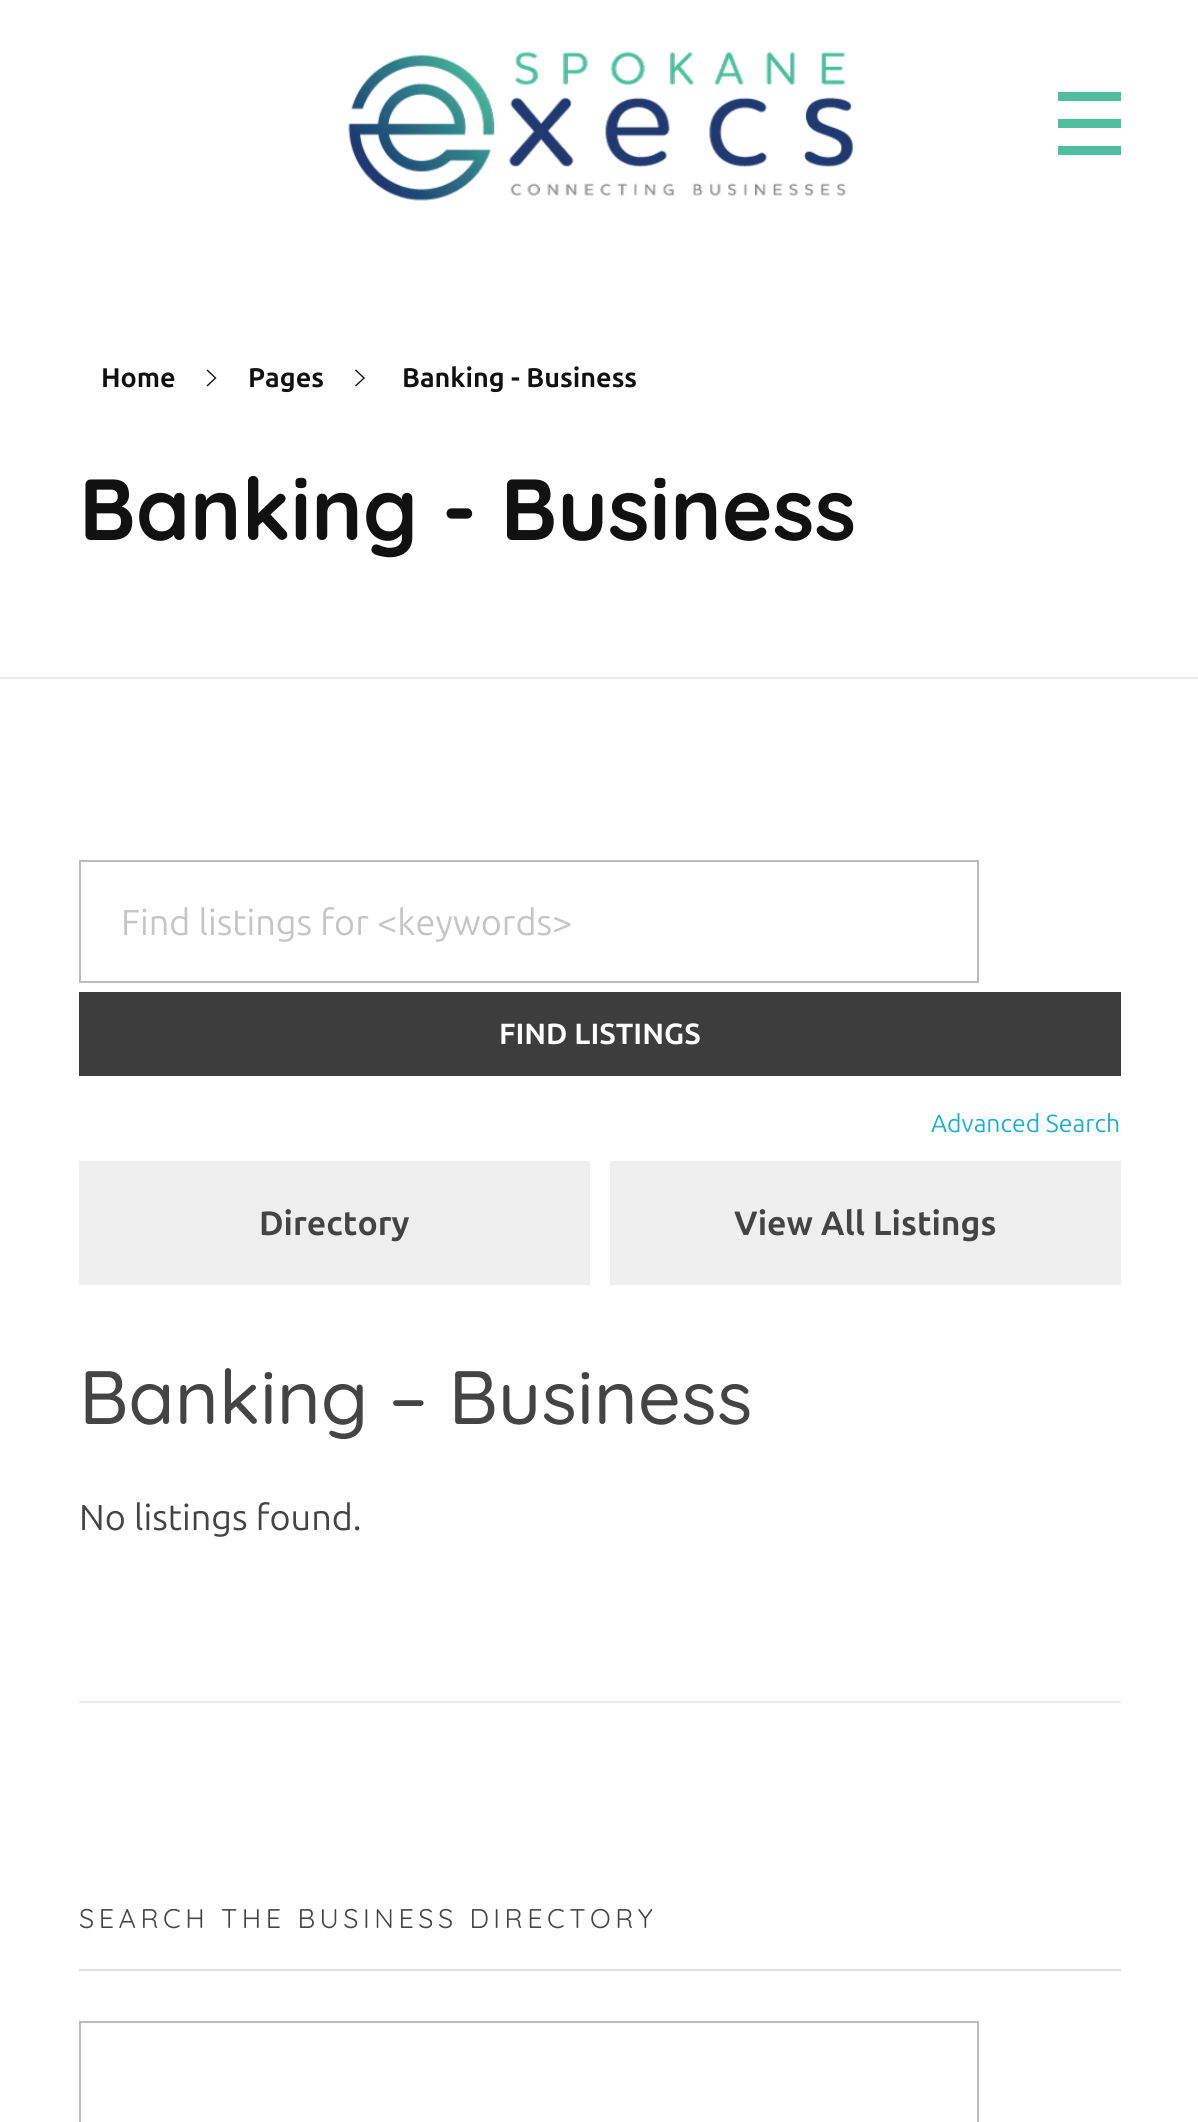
import math
import cairo

surface = cairo.ImageSurface(cairo.FORMAT_RGB24, 1198, 2122)
ctx = cairo.Context(surface)
options = cairo.FontOptions()
options.set_hint_metrics(cairo.HINT_METRICS_OFF)
options.set_hint_style(cairo.HINT_STYLE_NONE)
ctx.set_font_options(options)
ctx.set_miter_limit(4)


def spaced_text(x, y, s, letter, word):
    ctx.move_to(x, y)
    for ch in s:
        ctx.show_text(ch)
        ctx.rel_move_to(letter + word * (ch == ' '), 0)


def picture(path, x, y, w, h):
    ctx.save()
    ctx.set_source_surface(cairo.ImageSurface.create_from_png(path), x, y)
    ctx.rectangle(x, y, w, h)
    ctx.fill()
    ctx.restore()


ctx.set_source_rgb(1, 1, 1)
ctx.paint()
picture("img1.png", 348, 51, 506, 150)
ctx.set_source_rgb(0.306, 0.745, 0.612)
ctx.rectangle(1058, 92, 63, 9)
ctx.fill()
ctx.rectangle(1058, 119, 63, 9)
ctx.fill()
ctx.rectangle(1058, 146, 63, 9)
ctx.fill()
ctx.set_source_rgb(0.918, 0.918, 0.918)
ctx.rectangle(0, 677, 1198, 2)
ctx.fill()
ctx.select_font_face("Ubuntu", cairo.FONT_SLANT_NORMAL, cairo.FONT_WEIGHT_BOLD)
ctx.set_font_size(27)
ctx.set_source_rgb(0.067, 0.067, 0.067)
ctx.move_to(101, 387)
ctx.show_text("Home")
ctx.new_path()
ctx.move_to(206.5, 370.5)
ctx.line_to(214.5, 378)
ctx.line_to(206.5, 385.5)
ctx.line_to(207.5, 386.5)
ctx.line_to(216.5, 378)
ctx.line_to(207.5, 369.5)
ctx.close_path()
ctx.fill()
ctx.move_to(248, 387)
ctx.show_text("Pages")
ctx.new_path()
ctx.move_to(355, 370.5)
ctx.line_to(363, 378)
ctx.line_to(355, 385.5)
ctx.line_to(356, 386.5)
ctx.line_to(365, 378)
ctx.line_to(356, 369.5)
ctx.close_path()
ctx.fill()
ctx.move_to(402, 387)
ctx.show_text("Banking - Business")
ctx.select_font_face("Quicksand", cairo.FONT_SLANT_NORMAL, cairo.FONT_WEIGHT_BOLD)
ctx.set_font_size(86.5)
ctx.move_to(79, 540)
ctx.show_text("Banking - Business")
ctx.rectangle(80, 861, 898, 121)
ctx.set_source_rgb(0.733, 0.733, 0.733)
ctx.stroke()
ctx.select_font_face("Ubuntu")
ctx.set_font_size(36)
ctx.set_source_rgb(0.773, 0.773, 0.773)
ctx.move_to(121, 935)
ctx.show_text("Find listings for <keywords>")
ctx.set_source_rgb(0.239, 0.239, 0.239)
ctx.rectangle(79, 992, 1042, 84)
ctx.fill()
ctx.select_font_face("Ubuntu", cairo.FONT_SLANT_NORMAL, cairo.FONT_WEIGHT_BOLD)
ctx.set_font_size(29.25)
ctx.set_source_rgb(1, 1, 1)
ctx.move_to(499, 1044)
ctx.show_text("FIND LISTINGS")
ctx.select_font_face("Ubuntu")
ctx.set_font_size(24.75)
ctx.set_source_rgb(0.106, 0.69, 0.808)
ctx.move_to(931, 1132)
ctx.show_text("Advanced Search")
ctx.set_source_rgb(0.937, 0.937, 0.937)
ctx.rectangle(79, 1161, 511, 124)
ctx.fill()
ctx.select_font_face("Ubuntu", cairo.FONT_SLANT_NORMAL, cairo.FONT_WEIGHT_BOLD)
ctx.set_font_size(33.75)
ctx.set_source_rgb(0.267, 0.267, 0.267)
ctx.move_to(259, 1235)
ctx.show_text("Directory")
ctx.set_source_rgb(0.937, 0.937, 0.937)
ctx.rectangle(610, 1161, 511, 124)
ctx.fill()
ctx.set_source_rgb(0.267, 0.267, 0.267)
ctx.move_to(734, 1235)
ctx.show_text("View All Listings")
ctx.select_font_face("Quicksand Medium")
ctx.set_font_size(75.5)
ctx.move_to(79, 1424)
ctx.show_text("Banking – Business")
ctx.select_font_face("Ubuntu")
ctx.set_font_size(36)
ctx.move_to(79, 1530)
ctx.show_text("No listings found.")
ctx.set_source_rgb(0.918, 0.918, 0.918)
ctx.rectangle(79, 1701, 1042, 2)
ctx.fill()
ctx.set_source_rgb(0.871, 0.871, 0.871)
ctx.rectangle(79, 1969, 1042, 2)
ctx.fill()
ctx.select_font_face("Quicksand")
ctx.set_font_size(27)
ctx.set_source_rgb(0.267, 0.267, 0.267)
spaced_text(79, 1928, "SEARCH THE BUSINESS DIRECTORY", 4.5, 0)
ctx.rectangle(80, 2022, 898, 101)
ctx.set_source_rgb(0.733, 0.733, 0.733)
ctx.stroke()
surface.write_to_png("page.png")
